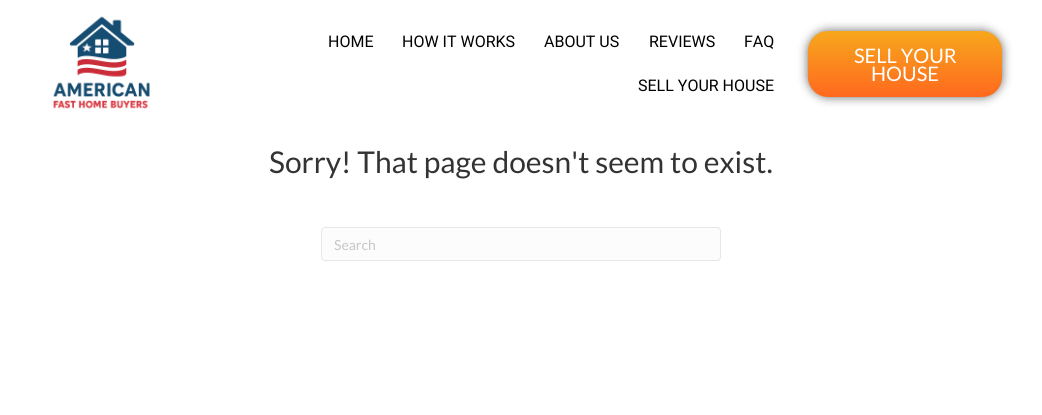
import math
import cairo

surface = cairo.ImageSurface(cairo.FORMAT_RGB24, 1042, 415)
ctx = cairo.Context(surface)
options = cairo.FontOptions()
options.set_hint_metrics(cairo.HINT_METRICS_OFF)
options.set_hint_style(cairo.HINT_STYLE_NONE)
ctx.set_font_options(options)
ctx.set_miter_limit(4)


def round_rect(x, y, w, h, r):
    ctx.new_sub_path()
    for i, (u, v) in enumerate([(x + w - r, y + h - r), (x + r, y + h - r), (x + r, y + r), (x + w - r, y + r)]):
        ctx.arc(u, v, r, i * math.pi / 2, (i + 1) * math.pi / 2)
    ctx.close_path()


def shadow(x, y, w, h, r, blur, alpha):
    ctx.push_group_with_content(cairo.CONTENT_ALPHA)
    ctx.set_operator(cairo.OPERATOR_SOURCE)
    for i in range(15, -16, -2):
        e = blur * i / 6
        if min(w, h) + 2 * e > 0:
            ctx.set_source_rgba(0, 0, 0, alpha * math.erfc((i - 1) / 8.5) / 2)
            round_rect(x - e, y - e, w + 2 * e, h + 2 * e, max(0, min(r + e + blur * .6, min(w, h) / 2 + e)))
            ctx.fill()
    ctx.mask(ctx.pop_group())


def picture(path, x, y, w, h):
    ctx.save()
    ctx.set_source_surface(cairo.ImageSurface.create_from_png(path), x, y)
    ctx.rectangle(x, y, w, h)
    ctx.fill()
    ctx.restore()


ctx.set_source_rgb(1, 1, 1)
ctx.paint()
picture("img1.png", 53, 16, 97, 93)
ctx.select_font_face("Roboto")
ctx.set_font_size(16)
ctx.set_source_rgb(0, 0, 0)
ctx.move_to(328, 47)
ctx.show_text("HOME")
ctx.move_to(402, 47)
ctx.show_text("HOW IT WORKS")
ctx.move_to(544, 47)
ctx.show_text("ABOUT US")
ctx.move_to(649, 47)
ctx.show_text("REVIEWS")
ctx.move_to(744, 47)
ctx.show_text("FAQ")
ctx.move_to(638, 91)
ctx.show_text("SELL YOUR HOUSE")
ctx.set_source_rgb(0, 0, 0)
shadow(808, 31, 194, 66, 20, 5, 0.6)
gradient = cairo.LinearGradient(905, 31, 905, 97)
gradient.add_color_stop_rgba(0, 0.969, 0.655, 0.114, 1)
gradient.add_color_stop_rgba(1, 1, 0.412, 0.118, 1)
ctx.set_source(gradient)
round_rect(808, 31, 194, 66, 20)
ctx.fill()
ctx.select_font_face("Lato")
ctx.set_font_size(20)
ctx.set_source_rgb(1, 1, 1)
ctx.move_to(854, 63)
ctx.show_text("SELL YOUR")
ctx.move_to(871, 81)
ctx.show_text("HOUSE")
ctx.set_font_size(30)
ctx.set_source_rgb(0.2, 0.2, 0.2)
ctx.move_to(269, 173)
ctx.show_text("Sorry! That page doesn't seem to exist.")
ctx.set_source_rgb(0.988, 0.988, 0.988)
round_rect(321.5, 227.5, 399, 33, 3.5)
ctx.fill_preserve()
ctx.set_source_rgb(0.902, 0.902, 0.902)
ctx.set_line_width(1)
ctx.stroke()
ctx.set_font_size(14)
ctx.set_source_rgb(0.776, 0.776, 0.776)
ctx.move_to(334, 250)
ctx.show_text("Search")
surface.write_to_png("page.png")
